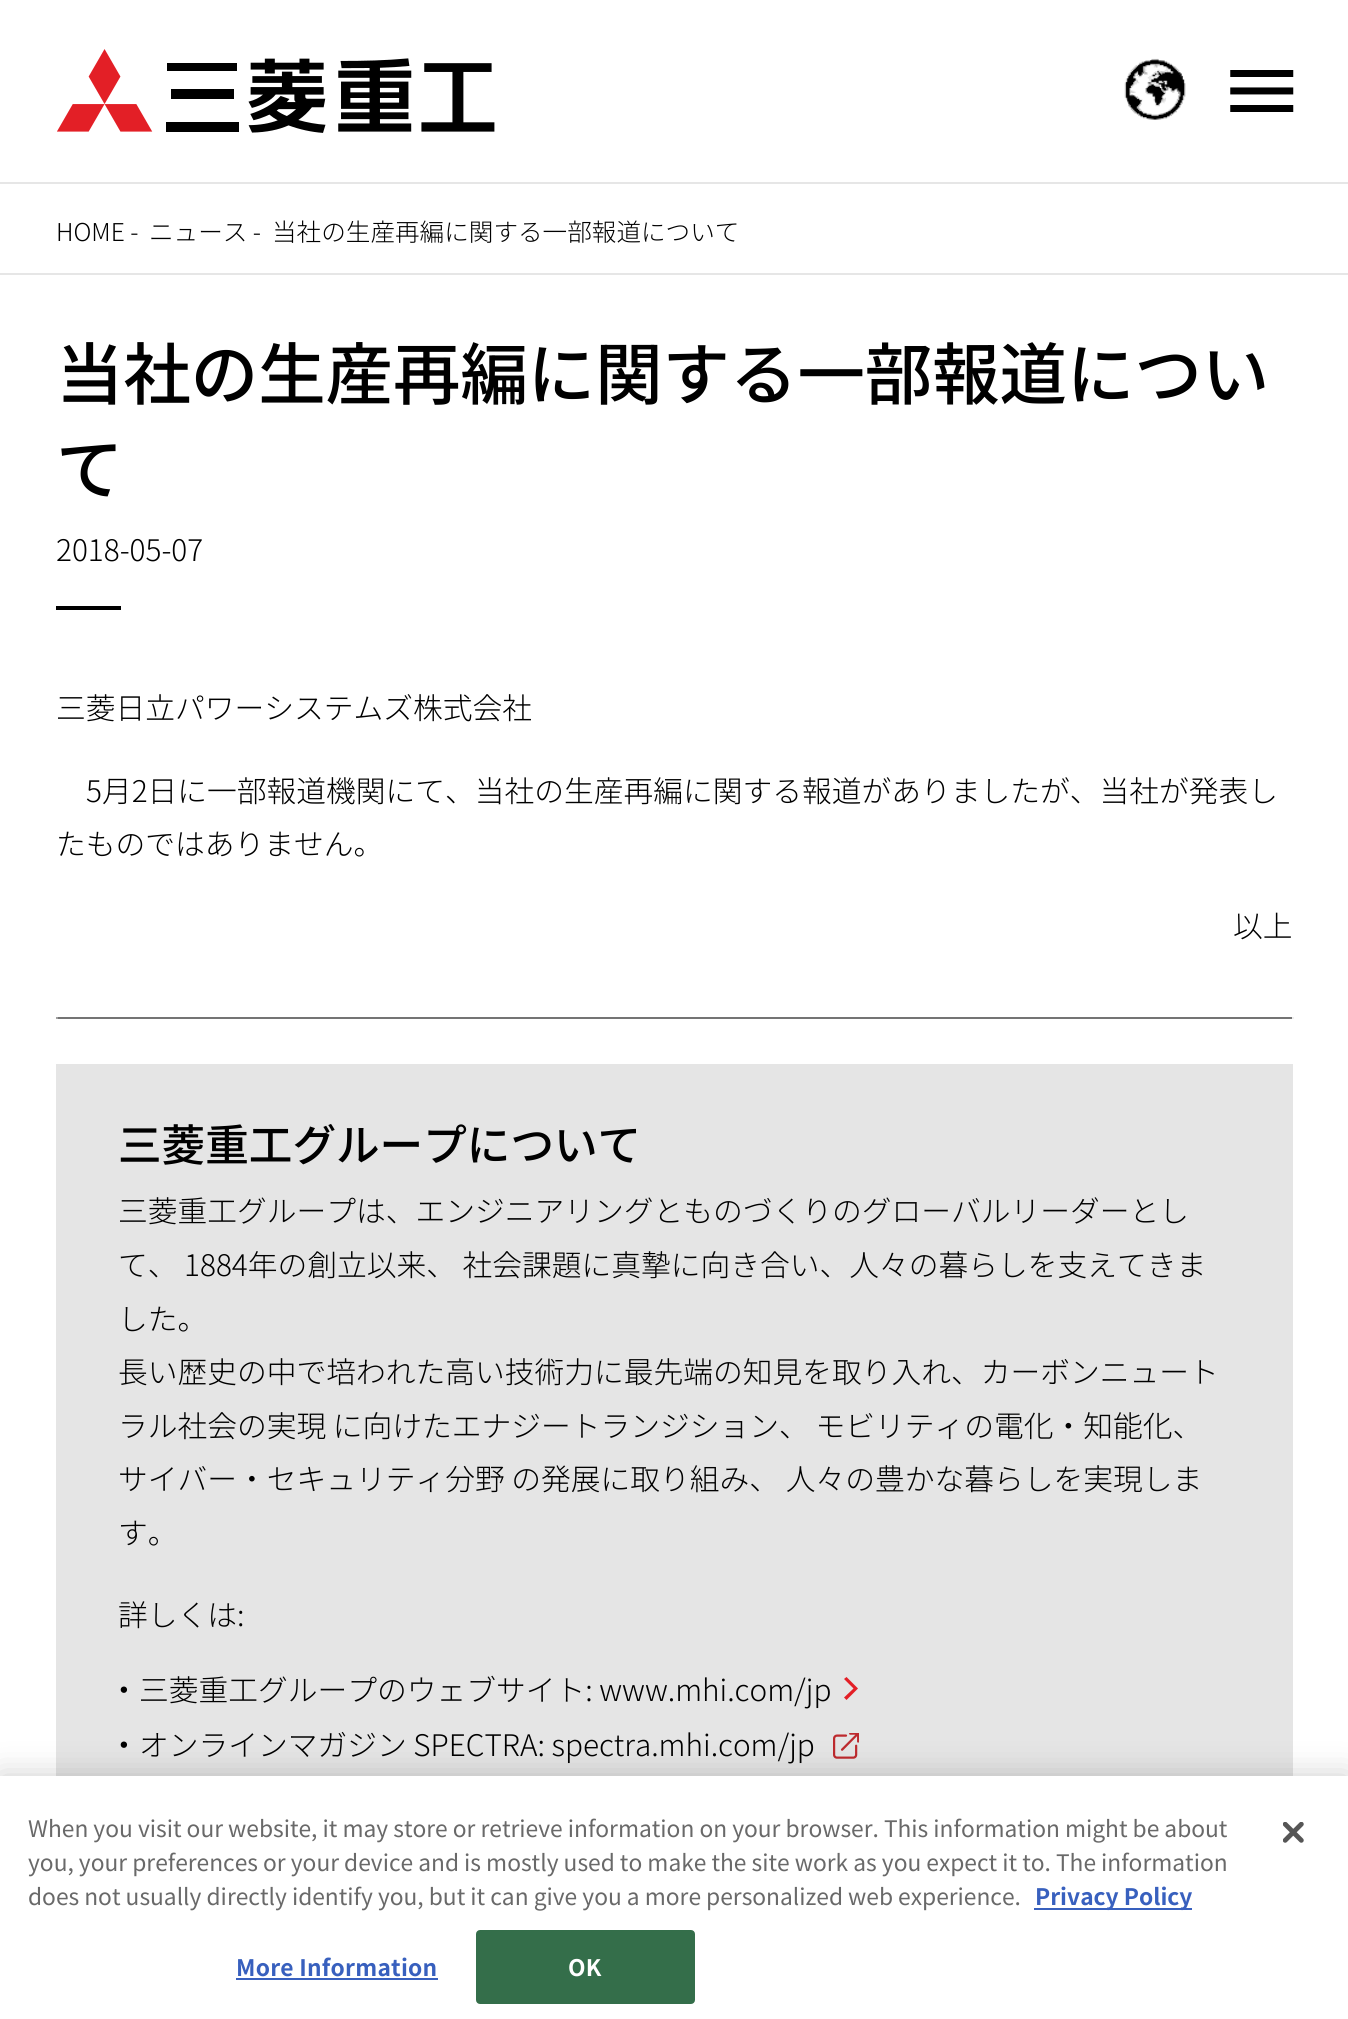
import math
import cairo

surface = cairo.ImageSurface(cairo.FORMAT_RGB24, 1348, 2019)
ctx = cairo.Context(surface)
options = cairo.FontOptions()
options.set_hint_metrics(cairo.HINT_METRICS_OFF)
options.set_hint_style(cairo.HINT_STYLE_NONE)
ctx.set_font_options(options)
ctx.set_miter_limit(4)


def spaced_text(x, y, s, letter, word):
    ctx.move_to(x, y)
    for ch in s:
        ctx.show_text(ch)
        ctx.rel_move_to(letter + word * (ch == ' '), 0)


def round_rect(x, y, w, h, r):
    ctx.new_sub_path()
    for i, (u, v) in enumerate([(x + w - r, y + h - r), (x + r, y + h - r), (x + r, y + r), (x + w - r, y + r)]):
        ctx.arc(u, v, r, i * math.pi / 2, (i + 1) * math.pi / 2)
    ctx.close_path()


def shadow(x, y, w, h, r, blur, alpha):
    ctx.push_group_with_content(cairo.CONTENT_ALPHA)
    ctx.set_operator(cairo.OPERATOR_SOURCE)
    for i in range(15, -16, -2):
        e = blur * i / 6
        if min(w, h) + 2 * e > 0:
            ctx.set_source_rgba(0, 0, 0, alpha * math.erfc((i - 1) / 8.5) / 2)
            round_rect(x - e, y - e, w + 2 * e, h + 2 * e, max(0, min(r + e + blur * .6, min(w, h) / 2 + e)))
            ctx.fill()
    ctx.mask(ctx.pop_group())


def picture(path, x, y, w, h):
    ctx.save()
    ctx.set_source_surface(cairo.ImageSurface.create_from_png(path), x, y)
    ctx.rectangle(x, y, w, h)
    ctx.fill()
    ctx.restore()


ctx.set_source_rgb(1, 1, 1)
ctx.paint()
picture("img1.png", 57, 49, 438, 84)
picture("img2.png", 1124, 58, 62, 62)
picture("img3.png", 1230, 70, 64, 42)
ctx.set_source_rgb(0.902, 0.902, 0.902)
ctx.rectangle(0, 182, 1348, 2)
ctx.fill()
ctx.rectangle(0, 273, 1348, 2)
ctx.fill()
ctx.select_font_face("Noto Sans JP Light")
ctx.set_font_size(24.6)
ctx.set_source_rgb(0, 0, 0)
ctx.move_to(56, 241)
ctx.show_text("HOME -")
ctx.move_to(149, 241)
ctx.show_text("ニュース -")
ctx.move_to(272, 241)
ctx.show_text("当社の生産再編に関する一部報道について")
ctx.select_font_face("Noto Sans JP Medium")
ctx.set_font_size(67.4)
ctx.move_to(56, 399)
ctx.show_text("当社の生産再編に関する一部報道につい")
ctx.move_to(56, 494)
ctx.show_text("て")
ctx.select_font_face("Noto Sans JP Light")
ctx.set_font_size(29.75)
ctx.move_to(56, 561)
ctx.show_text("2018-05-07")
ctx.rectangle(56, 606, 65, 4)
ctx.fill()
ctx.move_to(56, 719)
ctx.show_text("三菱日立パワーシステムズ株式会社")
ctx.move_to(86, 802)
ctx.show_text("5月2日に一部報道機関にて、当社の生産再編に関する報道がありましたが、当社が発表し")
ctx.move_to(56, 855)
ctx.show_text("たものではありません。")
ctx.move_to(1233, 937)
ctx.show_text("以上")
ctx.set_source_rgb(0.455, 0.455, 0.455)
ctx.rectangle(56, 1017, 1237, 2)
ctx.fill()
ctx.set_source_rgb(0.933, 0.933, 0.933)
ctx.rectangle(1292, 1017, 2, 2)
ctx.fill()
ctx.set_source_rgb(0.624, 0.624, 0.624)
ctx.rectangle(56, 1017, 2, 2)
ctx.fill()
ctx.set_source_rgb(0.898, 0.898, 0.898)
ctx.rectangle(56, 1064, 1237, 712)
ctx.fill()
ctx.select_font_face("Noto Sans JP Medium")
ctx.set_font_size(43.6)
ctx.set_source_rgb(0, 0, 0)
ctx.move_to(118, 1161)
ctx.show_text("三菱重工グループについて")
ctx.select_font_face("Noto Sans JP Light")
ctx.set_font_size(29.75)
ctx.move_to(118, 1222)
ctx.show_text("三菱重工グループは、エンジニアリングとものづくりのグローバルリーダーとし")
ctx.move_to(118, 1276)
ctx.show_text("て、 1884年の創立以来、 社会課題に真摯に向き合い、人々の暮らしを支えてきま")
ctx.move_to(118, 1330)
ctx.show_text("した。")
ctx.move_to(118, 1383)
ctx.show_text("長い歴史の中で培われた高い技術力に最先端の知見を取り入れ、カーボンニュート")
ctx.move_to(118, 1437)
ctx.show_text("ラル社会の実現 に向けたエナジートランジション、 モビリティの電化・知能化、")
ctx.move_to(118, 1490)
ctx.show_text("サイバー・セキュリティ分野 の発展に取り組み、 人々の豊かな暮らしを実現しま")
ctx.move_to(118, 1544)
ctx.show_text("す。")
ctx.move_to(118, 1626)
ctx.show_text("詳しくは:")
ctx.select_font_face("Noto Sans JP")
ctx.move_to(109, 1701)
ctx.show_text("・")
ctx.select_font_face("Noto Sans JP Light")
ctx.move_to(139, 1701)
ctx.show_text("三菱重工グループのウェブサイト: www.mhi.com/jp")
ctx.set_source_rgb(0.89, 0.122, 0.149)
ctx.new_path()
ctx.move_to(846.5, 1677)
ctx.line_to(844, 1679)
ctx.line_to(853.5, 1688.5)
ctx.line_to(844, 1697.5)
ctx.line_to(846.5, 1700)
ctx.line_to(858, 1688.5)
ctx.close_path()
ctx.fill()
ctx.select_font_face("Noto Sans JP")
ctx.set_source_rgb(0, 0, 0)
ctx.move_to(109, 1756)
ctx.show_text("・")
ctx.select_font_face("Noto Sans JP Light")
ctx.move_to(139, 1756)
ctx.show_text("オンラインマガジン SPECTRA: spectra.mhi.com/jp")
picture("img4.png", 833, 1733, 26, 26)
ctx.set_source_rgb(0, 0, 0)
shadow(0, 1776, 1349, 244, 0, 16, 0.2)
ctx.set_source_rgb(1, 1, 1)
ctx.rectangle(0, 1776, 1348, 243)
ctx.fill()
ctx.select_font_face("Noto Sans JP")
ctx.set_font_size(22.75)
ctx.set_source_rgb(0.412, 0.412, 0.412)
ctx.move_to(28, 1837)
ctx.show_text("When you visit our website, it may store or retrieve information on your browser. This information might be about")
ctx.move_to(28, 1871)
ctx.show_text("you, your preferences or your device and is mostly used to make the site work as you expect it to. The information")
ctx.move_to(28, 1905)
ctx.show_text("does not usually directly identify you, but it can give you a more personalized web experience.")
ctx.set_source_rgb(0.22, 0.376, 0.745)
ctx.rectangle(1034, 1908, 158, 2)
ctx.fill()
ctx.select_font_face("Noto Sans JP", cairo.FONT_SLANT_NORMAL, cairo.FONT_WEIGHT_BOLD)
ctx.move_to(1035, 1905)
ctx.show_text("Privacy Policy")
spaced_text(236, 1976, "More Information", 0.25, 0)
ctx.rectangle(236, 1978, 202, 2)
ctx.fill()
ctx.set_source_rgb(0.204, 0.431, 0.29)
round_rect(477, 1931, 217, 72, 3)
ctx.fill_preserve()
ctx.stroke()
ctx.set_source_rgb(1, 1, 1)
spaced_text(568, 1976, "OK", 0.25, 0)
picture("img5.png", 1283, 1822, 21, 21)
surface.write_to_png("page.png")
